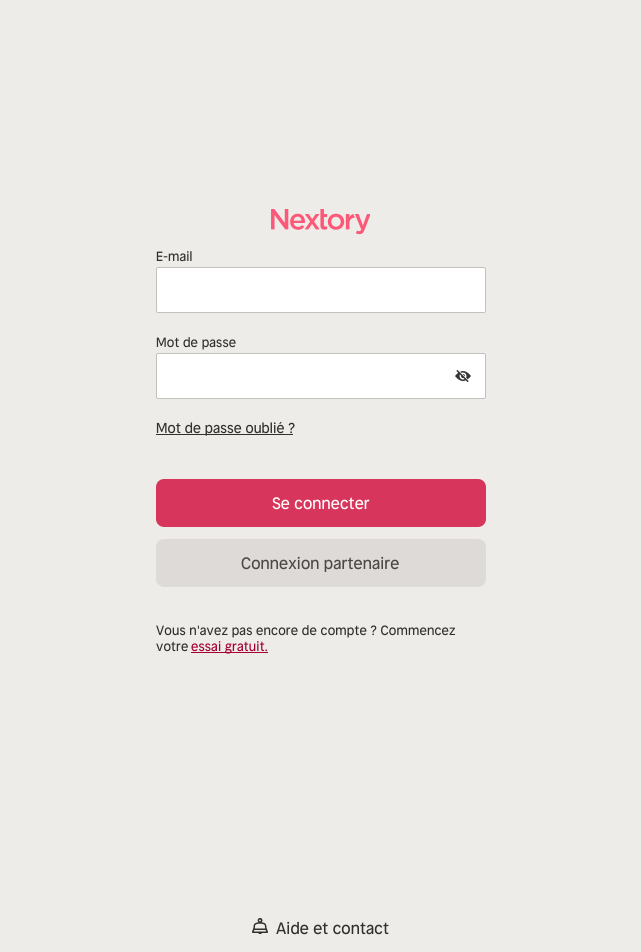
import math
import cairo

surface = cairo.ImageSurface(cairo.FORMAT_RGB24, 641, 952)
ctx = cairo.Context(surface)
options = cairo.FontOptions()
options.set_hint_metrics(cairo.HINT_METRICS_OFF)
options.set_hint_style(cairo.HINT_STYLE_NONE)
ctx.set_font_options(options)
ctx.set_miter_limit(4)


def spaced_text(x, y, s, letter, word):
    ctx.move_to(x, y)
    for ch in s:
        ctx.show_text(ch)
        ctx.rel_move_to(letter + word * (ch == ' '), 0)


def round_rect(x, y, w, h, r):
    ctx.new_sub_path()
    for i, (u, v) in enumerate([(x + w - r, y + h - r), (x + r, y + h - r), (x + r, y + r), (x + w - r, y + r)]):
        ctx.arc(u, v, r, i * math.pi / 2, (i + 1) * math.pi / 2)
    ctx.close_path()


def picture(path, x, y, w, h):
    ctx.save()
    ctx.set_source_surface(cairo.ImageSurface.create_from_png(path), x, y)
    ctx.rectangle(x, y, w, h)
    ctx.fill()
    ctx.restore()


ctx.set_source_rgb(0.933, 0.922, 0.91)
ctx.paint()
picture("img1.png", 271, 209, 99, 26)
ctx.select_font_face("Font")
ctx.set_font_size(13)
ctx.set_source_rgb(0.196, 0.188, 0.176)
spaced_text(156, 261, "E-mail", 0.15, 0)
ctx.set_source_rgb(1, 1, 1)
round_rect(156.5, 267.5, 329, 45, 1.5)
ctx.fill_preserve()
ctx.set_source_rgb(0.769, 0.753, 0.741)
ctx.set_line_width(1)
ctx.stroke()
ctx.set_source_rgb(0.196, 0.188, 0.176)
spaced_text(156, 347, "Mot de passe", 0.15, 0)
ctx.set_source_rgb(1, 1, 1)
round_rect(156.5, 353.5, 329, 45, 1.5)
ctx.fill_preserve()
ctx.set_source_rgb(0.769, 0.753, 0.741)
ctx.stroke()
picture("img2.png", 455, 370, 16, 12)
ctx.set_source_rgb(0.196, 0.188, 0.176)
ctx.rectangle(156, 434, 137, 1)
ctx.fill()
ctx.set_font_size(14)
spaced_text(156, 433, "Mot de passe oublié ?", 0.1, 0)
ctx.set_source_rgb(0.843, 0.208, 0.357)
round_rect(156, 479, 330, 48, 8)
ctx.fill()
ctx.set_font_size(16)
ctx.set_source_rgb(1, 1, 1)
spaced_text(272, 509, "Se connecter", 0.1, 0)
ctx.set_source_rgb(0.871, 0.855, 0.843)
round_rect(156, 539, 330, 48, 8)
ctx.fill()
ctx.set_source_rgb(0.298, 0.282, 0.275)
spaced_text(241, 569, "Connexion partenaire", 0.1, 0)
ctx.set_font_size(13)
ctx.set_source_rgb(0.196, 0.188, 0.176)
spaced_text(156, 635, "Vous n'avez pas encore de compte ? Commencez", 0.15, 0)
spaced_text(156, 651, "votre", 0.15, 0)
ctx.set_source_rgb(0.643, 0, 0.208)
ctx.rectangle(191, 652, 77, 1)
ctx.fill()
spaced_text(191, 651, "essai gratuit.", 0.15, 0)
picture("img3.png", 252, 918, 16, 16)
ctx.set_font_size(16)
ctx.set_source_rgb(0.196, 0.188, 0.176)
spaced_text(276, 934, "Aide et contact", 0.1, 0)
surface.write_to_png("page.png")
